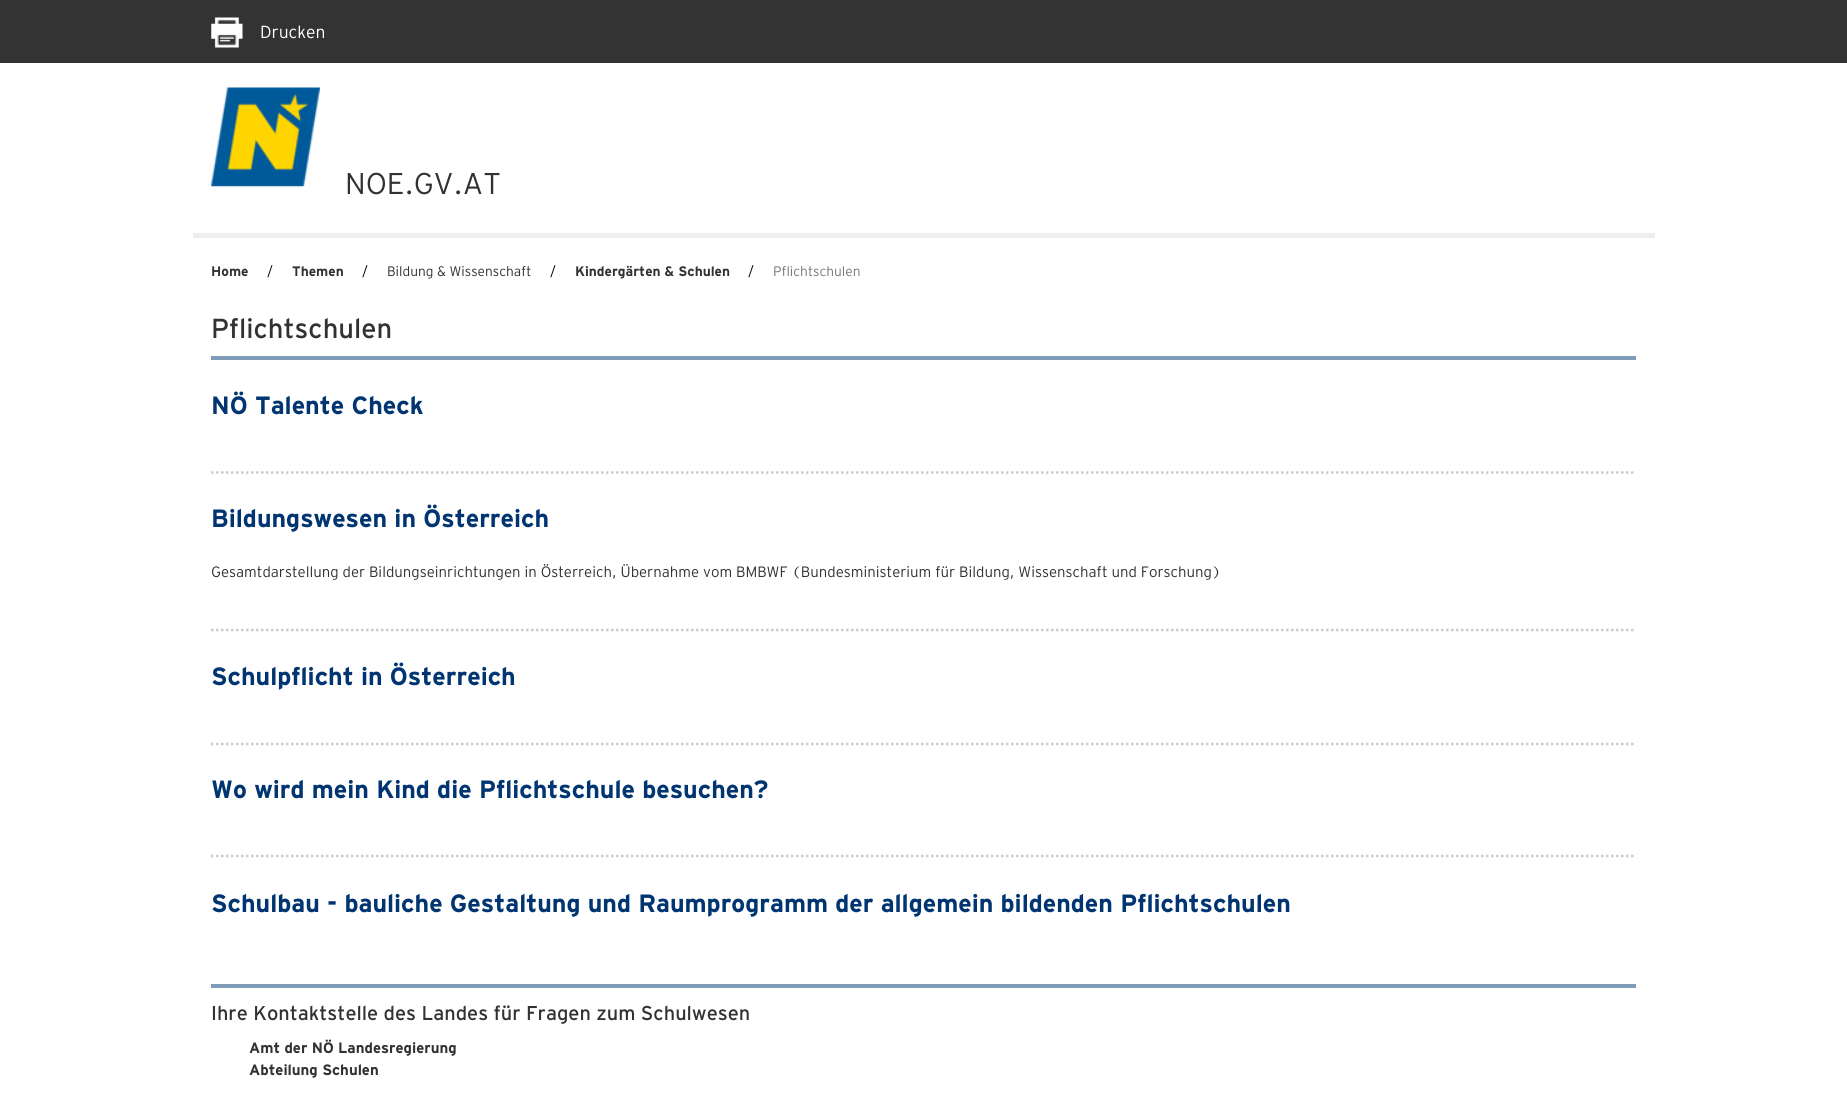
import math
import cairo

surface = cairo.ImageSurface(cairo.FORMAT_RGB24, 1847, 1115)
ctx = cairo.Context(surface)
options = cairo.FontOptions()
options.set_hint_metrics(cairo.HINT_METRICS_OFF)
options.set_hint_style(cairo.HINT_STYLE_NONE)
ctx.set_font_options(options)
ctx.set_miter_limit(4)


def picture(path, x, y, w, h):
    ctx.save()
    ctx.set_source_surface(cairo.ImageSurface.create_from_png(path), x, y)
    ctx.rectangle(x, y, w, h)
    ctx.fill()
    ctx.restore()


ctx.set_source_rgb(1, 1, 1)
ctx.paint()
ctx.set_source_rgb(0.2, 0.2, 0.2)
ctx.rectangle(0, 0, 1847, 63)
ctx.fill()
picture("img1.png", 211, 17, 32, 31)
ctx.select_font_face("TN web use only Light")
ctx.set_font_size(17.5)
ctx.set_source_rgb(1, 1, 1)
ctx.move_to(260, 38)
ctx.show_text("Drucken")
ctx.set_source_rgb(0.933, 0.933, 0.933)
ctx.rectangle(193, 233, 1462, 5)
ctx.fill()
picture("img2.png", 211, 87, 109, 100)
ctx.set_font_size(30)
ctx.set_source_rgb(0.196, 0.196, 0.196)
ctx.move_to(345, 194)
ctx.show_text("NOE.GV.AT")
ctx.select_font_face("TN web use only", cairo.FONT_SLANT_NORMAL, cairo.FONT_WEIGHT_BOLD)
ctx.set_font_size(13.75)
ctx.move_to(211, 276)
ctx.show_text("Home")
ctx.select_font_face("TN web use only Light")
ctx.set_source_rgb(0, 0, 0)
ctx.move_to(267, 276)
ctx.show_text("/")
ctx.select_font_face("TN web use only", cairo.FONT_SLANT_NORMAL, cairo.FONT_WEIGHT_BOLD)
ctx.set_source_rgb(0.196, 0.196, 0.196)
ctx.move_to(292, 276)
ctx.show_text("Themen")
ctx.select_font_face("TN web use only Light")
ctx.set_source_rgb(0, 0, 0)
ctx.move_to(362, 276)
ctx.show_text("/")
ctx.set_source_rgb(0.196, 0.196, 0.196)
ctx.move_to(387, 276)
ctx.show_text("Bildung & Wissenschaft")
ctx.set_source_rgb(0, 0, 0)
ctx.move_to(550, 276)
ctx.show_text("/")
ctx.select_font_face("TN web use only", cairo.FONT_SLANT_NORMAL, cairo.FONT_WEIGHT_BOLD)
ctx.set_source_rgb(0.196, 0.196, 0.196)
ctx.move_to(575, 276)
ctx.show_text("Kindergärten & Schulen")
ctx.select_font_face("TN web use only Light")
ctx.set_source_rgb(0, 0, 0)
ctx.move_to(748, 276)
ctx.show_text("/")
ctx.set_source_rgb(0.467, 0.467, 0.467)
ctx.move_to(773, 276)
ctx.show_text("Pflichtschulen")
ctx.set_source_rgb(0.502, 0.612, 0.722)
ctx.rectangle(211, 356, 1425, 4)
ctx.fill()
ctx.select_font_face("TN web use only")
ctx.set_font_size(27.5)
ctx.set_source_rgb(0.196, 0.196, 0.196)
ctx.move_to(211, 338)
ctx.show_text("Pflichtschulen")
ctx.new_path()
ctx.move_to(211, 472.5)
ctx.line_to(1636, 472.5)
ctx.set_source_rgb(0.8, 0.8, 0.8)
ctx.set_line_width(2.5)
ctx.set_dash([2.5, 2.5])
ctx.stroke()
ctx.select_font_face("TN web use only", cairo.FONT_SLANT_NORMAL, cairo.FONT_WEIGHT_BOLD)
ctx.set_font_size(25)
ctx.set_source_rgb(0, 0.208, 0.447)
ctx.move_to(211, 414)
ctx.show_text("NÖ Talente Check")
ctx.new_path()
ctx.move_to(211, 630)
ctx.line_to(1636, 630)
ctx.set_source_rgb(0.8, 0.8, 0.8)
ctx.stroke()
ctx.set_source_rgb(0, 0.208, 0.447)
ctx.move_to(211, 527)
ctx.show_text("Bildungswesen in Österreich")
ctx.select_font_face("TN web use only Light")
ctx.set_font_size(15)
ctx.set_source_rgb(0.196, 0.196, 0.196)
ctx.move_to(211, 577)
ctx.show_text("Gesamtdarstellung der Bildungseinrichtungen in Österreich, Übernahme vom BMBWF (Bundesministerium für Bildung, Wissenschaft und Forschung)")
ctx.new_path()
ctx.move_to(211, 744)
ctx.line_to(1636, 744)
ctx.set_source_rgb(0.8, 0.8, 0.8)
ctx.stroke()
ctx.select_font_face("TN web use only", cairo.FONT_SLANT_NORMAL, cairo.FONT_WEIGHT_BOLD)
ctx.set_font_size(25)
ctx.set_source_rgb(0, 0.208, 0.447)
ctx.move_to(211, 685)
ctx.show_text("Schulpflicht in Österreich")
ctx.new_path()
ctx.move_to(211, 856)
ctx.line_to(1636, 856)
ctx.set_source_rgb(0.8, 0.8, 0.8)
ctx.stroke()
ctx.set_source_rgb(0, 0.208, 0.447)
ctx.move_to(211, 798)
ctx.show_text("Wo wird mein Kind die Pflichtschule besuchen?")
ctx.move_to(211, 912)
ctx.show_text("Schulbau - bauliche Gestaltung und Raumprogramm der allgemein bildenden Pflichtschulen")
ctx.set_source_rgb(0.502, 0.612, 0.722)
ctx.rectangle(211, 984, 1425, 4)
ctx.fill()
ctx.select_font_face("TN web use only")
ctx.set_font_size(20)
ctx.set_source_rgb(0.196, 0.196, 0.196)
ctx.move_to(211, 1020)
ctx.show_text("Ihre Kontaktstelle des Landes für Fragen zum Schulwesen")
ctx.select_font_face("TN web use only", cairo.FONT_SLANT_NORMAL, cairo.FONT_WEIGHT_BOLD)
ctx.set_font_size(15)
ctx.move_to(249, 1053)
ctx.show_text("Amt der NÖ Landesregierung")
ctx.move_to(249, 1075)
ctx.show_text("Abteilung Schulen")
surface.write_to_png("page.png")
